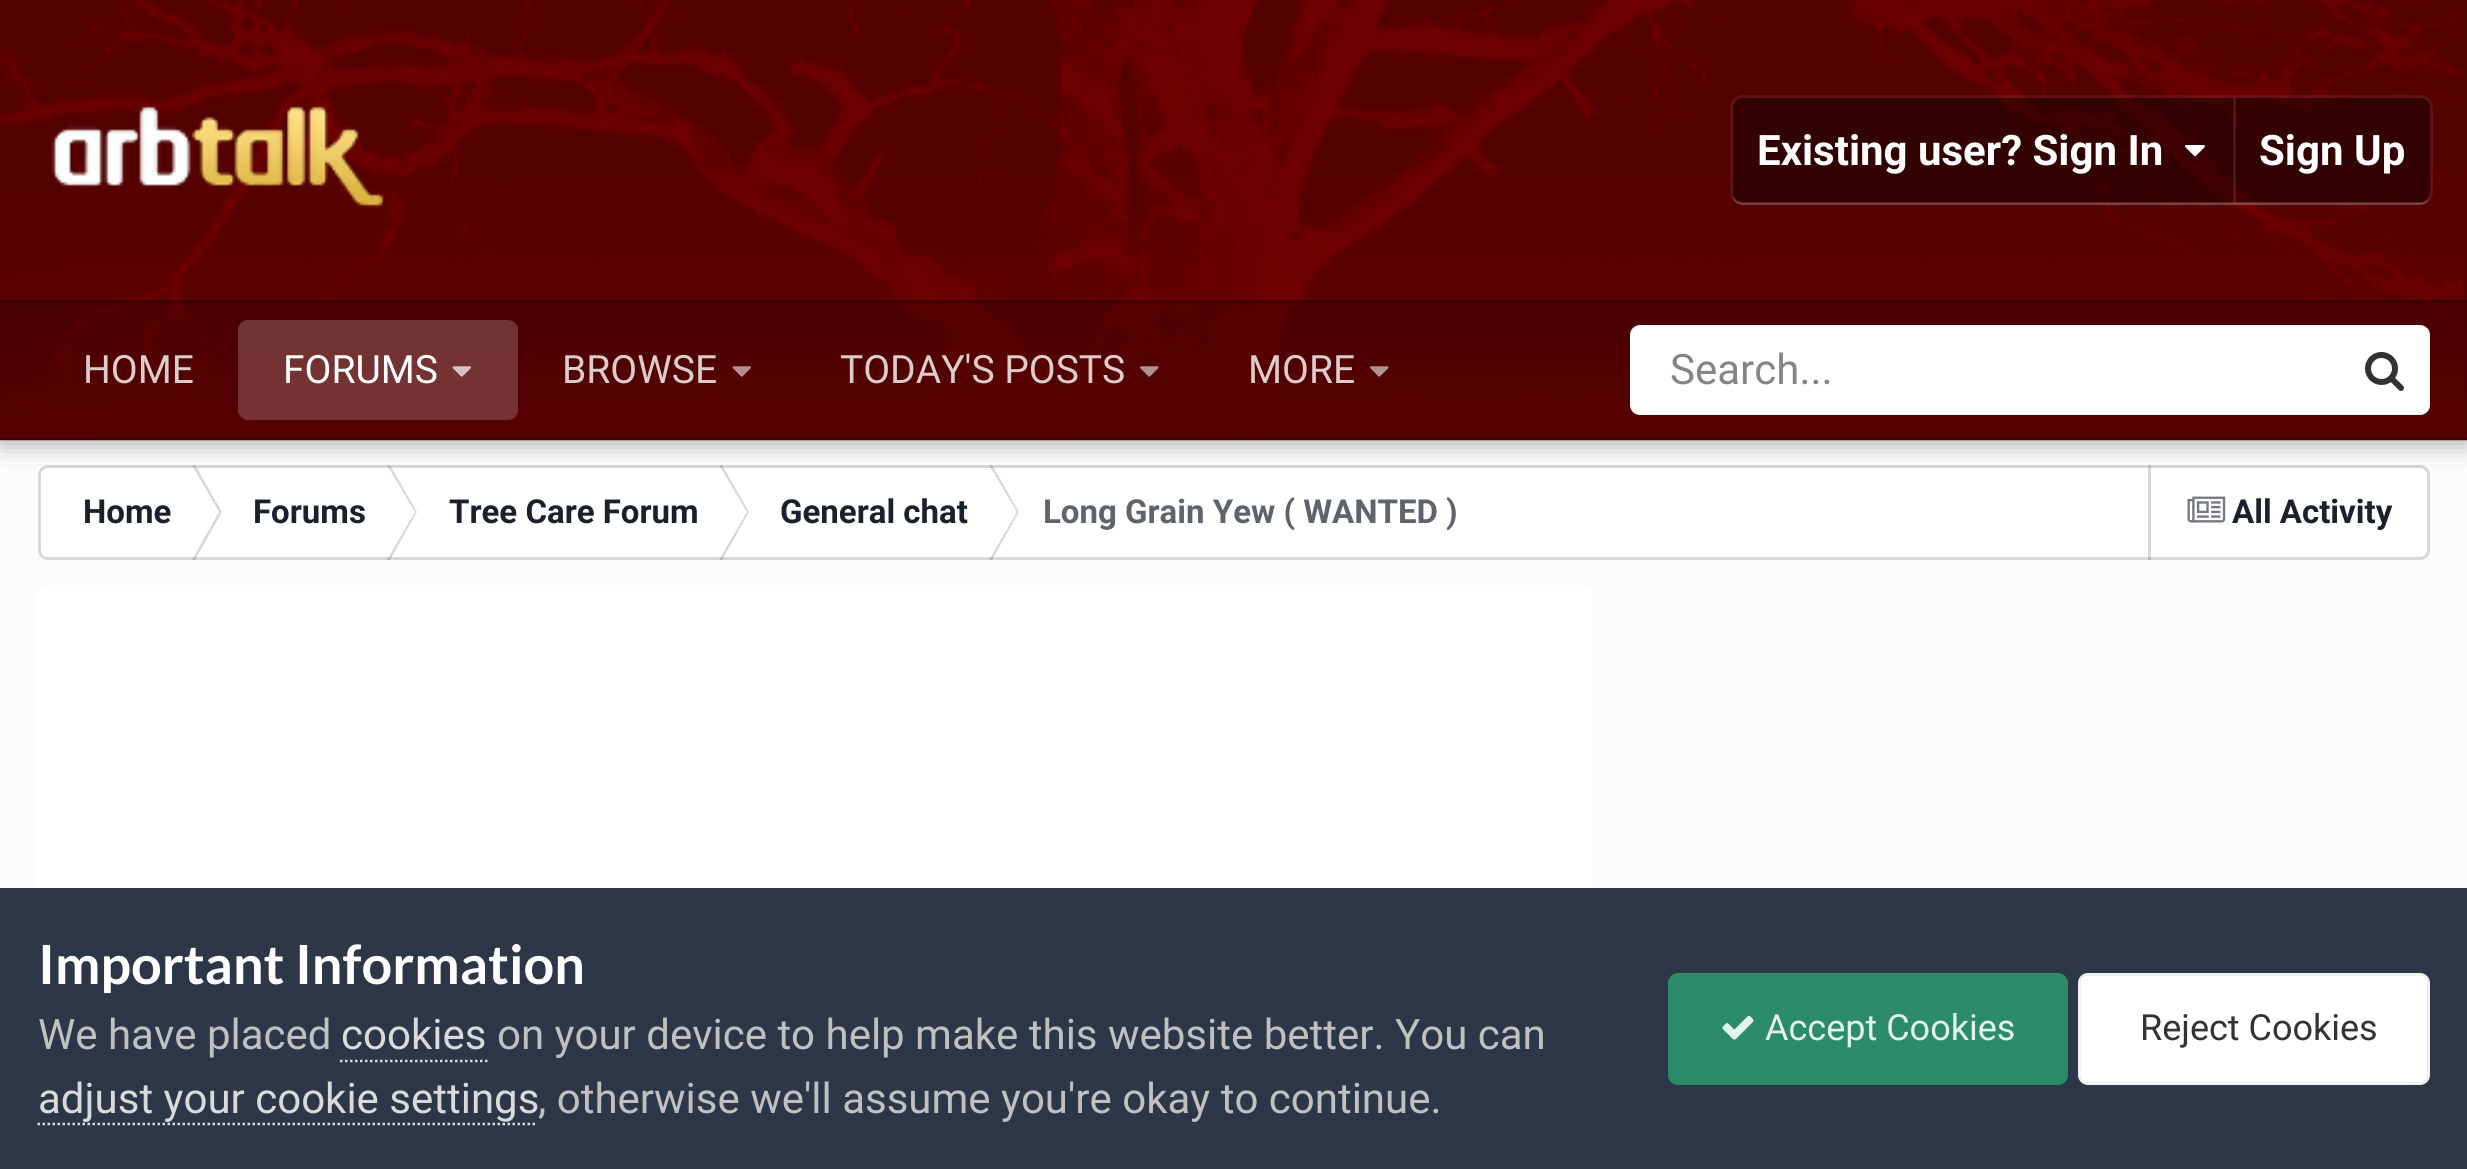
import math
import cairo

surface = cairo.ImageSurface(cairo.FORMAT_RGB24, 2467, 1169)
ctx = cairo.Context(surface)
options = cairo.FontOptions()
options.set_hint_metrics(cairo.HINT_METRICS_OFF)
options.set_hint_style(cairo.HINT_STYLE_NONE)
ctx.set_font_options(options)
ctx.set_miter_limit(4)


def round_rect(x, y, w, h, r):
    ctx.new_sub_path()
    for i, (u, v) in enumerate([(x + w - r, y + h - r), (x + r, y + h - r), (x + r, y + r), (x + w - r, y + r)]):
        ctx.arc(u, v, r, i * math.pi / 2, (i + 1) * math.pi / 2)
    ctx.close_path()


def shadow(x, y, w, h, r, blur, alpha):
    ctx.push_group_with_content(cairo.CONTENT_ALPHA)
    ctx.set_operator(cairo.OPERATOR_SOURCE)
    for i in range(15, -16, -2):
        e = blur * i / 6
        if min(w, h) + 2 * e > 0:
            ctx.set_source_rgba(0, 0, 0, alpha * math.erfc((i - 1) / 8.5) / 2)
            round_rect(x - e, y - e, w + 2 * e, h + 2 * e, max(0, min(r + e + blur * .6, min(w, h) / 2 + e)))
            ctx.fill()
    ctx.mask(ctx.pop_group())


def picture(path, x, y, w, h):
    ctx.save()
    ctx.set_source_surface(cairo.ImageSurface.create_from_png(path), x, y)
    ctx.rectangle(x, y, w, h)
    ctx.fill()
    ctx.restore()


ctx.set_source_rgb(0.992, 0.988, 0.988)
ctx.paint()
ctx.set_source_rgb(1, 1, 1)
round_rect(38, 465, 2392, 95, 10)
ctx.fill()
ctx.set_source_rgb(0.843, 0.847, 0.851)
ctx.new_path()
ctx.move_to(192, 465)
ctx.line_to(195, 465)
ctx.line_to(222, 512)
ctx.line_to(219, 512)
ctx.close_path()
ctx.fill()
ctx.new_path()
ctx.move_to(192, 560)
ctx.line_to(195, 560)
ctx.line_to(222, 512)
ctx.line_to(219, 512)
ctx.close_path()
ctx.fill()
ctx.new_path()
ctx.move_to(387, 465)
ctx.line_to(390, 465)
ctx.line_to(417, 512)
ctx.line_to(415, 512)
ctx.close_path()
ctx.fill()
ctx.new_path()
ctx.move_to(387, 560)
ctx.line_to(390, 560)
ctx.line_to(417, 512)
ctx.line_to(415, 512)
ctx.close_path()
ctx.fill()
ctx.new_path()
ctx.move_to(719, 465)
ctx.line_to(722, 465)
ctx.line_to(749, 512)
ctx.line_to(747, 512)
ctx.close_path()
ctx.fill()
ctx.new_path()
ctx.move_to(719, 560)
ctx.line_to(722, 560)
ctx.line_to(749, 512)
ctx.line_to(747, 512)
ctx.close_path()
ctx.fill()
ctx.new_path()
ctx.move_to(989, 465)
ctx.line_to(992, 465)
ctx.line_to(1019, 512)
ctx.line_to(1017, 512)
ctx.close_path()
ctx.fill()
ctx.new_path()
ctx.move_to(989, 560)
ctx.line_to(992, 560)
ctx.line_to(1019, 512)
ctx.line_to(1017, 512)
ctx.close_path()
ctx.fill()
ctx.rectangle(2148, 465, 3, 95)
ctx.fill()
picture("img9.png", 2187, 496, 39, 27)
round_rect(39.5, 466.5, 2389, 92, 8.5)
ctx.set_source_rgba(0.208, 0.235, 0.255, 0.2)
ctx.set_line_width(3)
ctx.stroke()
ctx.set_source_rgb(0, 0, 0)
shadow(0, 3, 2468, 440, 0, 12.5, 0.35)
ctx.set_source_rgb(0.322, 0.004, 0.004)
ctx.rectangle(0, 0, 2467, 440)
ctx.fill()
picture("img1.png", 0, 0, 2467, 440)
picture("img2.png", 37, 104, 347, 105)
round_rect(1731.5, 96.5, 700, 107, 11.5)
ctx.set_source_rgba(1, 1, 1, 0.07)
ctx.stroke()
ctx.set_source_rgba(1, 1, 1, 0.2)
ctx.new_path()
ctx.move_to(1733, 196)
ctx.curve_to(1733, 201, 1738, 205, 1743, 205)
ctx.line_to(2420, 205)
ctx.curve_to(2427, 205, 2430, 199, 2430, 192)
ctx.curve_to(2430, 198, 2426, 202, 2420, 202)
ctx.line_to(1742, 202)
ctx.curve_to(1738, 202, 1734, 200, 1733, 196)
ctx.close_path()
ctx.fill()
ctx.set_source_rgba(0, 0, 0, 0.4)
round_rect(1733, 98, 697, 105, 10)
ctx.fill()
ctx.select_font_face("Roboto", cairo.FONT_SLANT_NORMAL, cairo.FONT_WEIGHT_BOLD)
ctx.set_font_size(42)
ctx.set_source_rgb(1, 1, 1)
ctx.move_to(1757, 165)
ctx.show_text("Existing user? Sign In")
picture("img3.png", 2185, 145, 20, 12)
ctx.set_source_rgba(1, 1, 1, 0.1)
ctx.rectangle(2233, 98, 3, 105)
ctx.fill()
ctx.set_source_rgb(1, 1, 1)
ctx.move_to(2259, 165)
ctx.show_text("Sign Up")
ctx.set_source_rgba(0, 0, 0, 0.2)
ctx.rectangle(0, 300, 2467, 140)
ctx.fill()
ctx.rectangle(0, 300, 2467, 3)
ctx.fill()
ctx.rectangle(0, 438, 2467, 3)
ctx.fill()
ctx.select_font_face("Roboto")
ctx.set_font_size(39)
ctx.set_source_rgb(0.863, 0.8, 0.8)
ctx.move_to(83, 383)
ctx.show_text("HOME")
ctx.set_source_rgba(1, 1, 1, 0.2)
round_rect(238, 320, 280, 100, 10)
ctx.fill()
ctx.set_source_rgb(1, 1, 1)
ctx.move_to(283, 383)
ctx.show_text("FORUMS")
picture("img4.png", 452, 366, 19, 11)
ctx.set_source_rgb(0.863, 0.8, 0.8)
ctx.move_to(562, 383)
ctx.show_text("BROWSE")
picture("img5.png", 732, 366, 19, 11)
ctx.move_to(840, 383)
ctx.show_text("TODAY'S POSTS")
picture("img6.png", 1140, 366, 19, 11)
ctx.move_to(1248, 383)
ctx.show_text("MORE")
picture("img7.png", 1370, 366, 19, 11)
ctx.set_source_rgb(1, 1, 1)
round_rect(1630, 325, 800, 90, 10)
ctx.fill()
ctx.set_font_size(42)
ctx.set_source_rgb(0.522, 0.522, 0.522)
ctx.move_to(1670, 384)
ctx.show_text("Search...")
picture("img8.png", 2365, 352, 39, 39)
ctx.select_font_face("Roboto", cairo.FONT_SLANT_NORMAL, cairo.FONT_WEIGHT_BOLD)
ctx.set_font_size(33)
ctx.set_source_rgb(0.102, 0.125, 0.173)
ctx.move_to(83, 523)
ctx.show_text("Home")
ctx.move_to(253, 523)
ctx.show_text("Forums")
ctx.move_to(449, 523)
ctx.show_text("Tree Care Forum")
ctx.move_to(780, 523)
ctx.show_text("General chat")
ctx.set_source_rgb(0.373, 0.388, 0.42)
ctx.move_to(1043, 523)
ctx.show_text("Long Grain Yew ( WANTED )")
ctx.set_source_rgb(0.102, 0.125, 0.173)
ctx.move_to(2232, 523)
ctx.show_text("All Activity")
ctx.set_source_rgb(1, 1, 1)
round_rect(38, 585, 1555, 350, 10)
ctx.fill()
ctx.set_source_rgb(0.176, 0.216, 0.282)
ctx.rectangle(0, 888, 2467, 281)
ctx.fill()
ctx.select_font_face("Lato", cairo.FONT_SLANT_NORMAL, cairo.FONT_WEIGHT_BOLD)
ctx.set_font_size(54)
ctx.set_source_rgb(1, 1, 1)
ctx.move_to(38, 984)
ctx.show_text("Important Information")
ctx.select_font_face("Roboto")
ctx.set_font_size(42)
ctx.set_source_rgb(0.753, 0.753, 0.753)
ctx.move_to(38, 1049)
ctx.show_text("We have placed")
ctx.set_source_rgb(0.855, 0.855, 0.855)
ctx.move_to(341, 1049)
ctx.show_text("cookies")
ctx.new_path()
ctx.move_to(340, 1061)
ctx.line_to(487.5, 1061)
ctx.set_line_width(2.5)
ctx.set_dash([2.5, 2.5])
ctx.stroke()
ctx.set_source_rgb(0.753, 0.753, 0.753)
ctx.move_to(497, 1049)
ctx.show_text("on your device to help make this website better. You can")
ctx.set_source_rgb(0.855, 0.855, 0.855)
ctx.move_to(38, 1113)
ctx.show_text("adjust your cookie settings")
ctx.new_path()
ctx.move_to(37.5, 1124)
ctx.line_to(537.5, 1124)
ctx.stroke()
ctx.set_source_rgb(0.753, 0.753, 0.753)
ctx.move_to(538, 1113)
ctx.show_text(", otherwise we'll assume you're okay to continue.")
ctx.set_source_rgb(0.173, 0.549, 0.412)
round_rect(1668, 973, 400, 112, 10)
ctx.fill()
picture("img10.png", 1722, 1015, 32, 25)
ctx.set_font_size(36)
ctx.set_source_rgb(0.89, 0.953, 0.925)
ctx.move_to(1765, 1040)
ctx.show_text("Accept Cookies")
ctx.set_source_rgb(1, 1, 1)
round_rect(2078, 973, 352, 112, 10)
ctx.fill()
round_rect(2079.5, 974.5, 349, 109, 8.5)
ctx.set_source_rgba(0.2, 0.2, 0.2, 0.07)
ctx.set_line_width(3)
ctx.set_dash([])
ctx.stroke()
ctx.set_source_rgb(0.2, 0.2, 0.2)
ctx.move_to(2140, 1040)
ctx.show_text("Reject Cookies")
surface.write_to_png("page.png")
